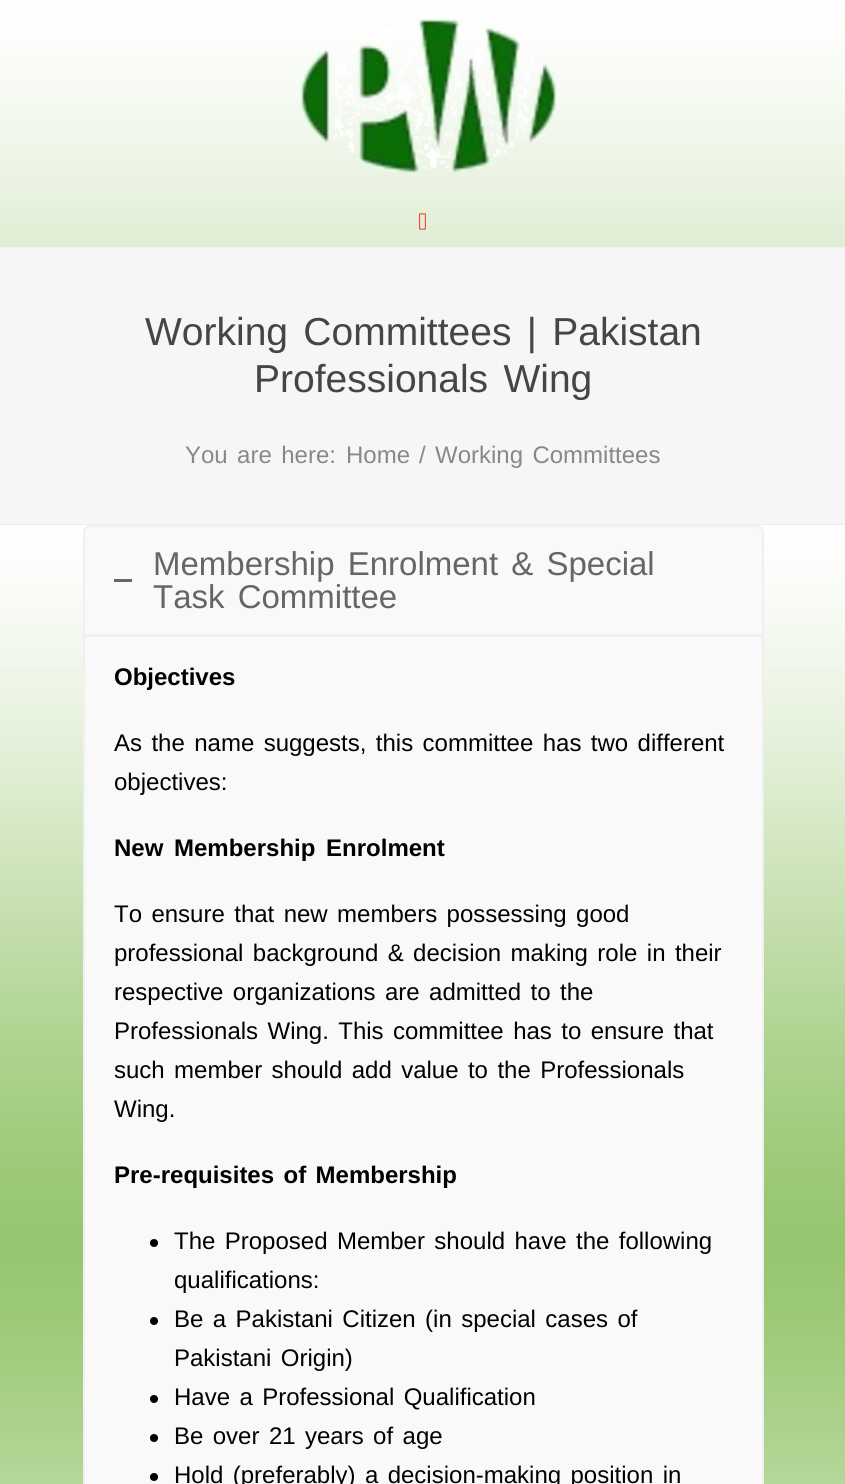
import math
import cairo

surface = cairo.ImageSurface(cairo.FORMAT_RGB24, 845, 1484)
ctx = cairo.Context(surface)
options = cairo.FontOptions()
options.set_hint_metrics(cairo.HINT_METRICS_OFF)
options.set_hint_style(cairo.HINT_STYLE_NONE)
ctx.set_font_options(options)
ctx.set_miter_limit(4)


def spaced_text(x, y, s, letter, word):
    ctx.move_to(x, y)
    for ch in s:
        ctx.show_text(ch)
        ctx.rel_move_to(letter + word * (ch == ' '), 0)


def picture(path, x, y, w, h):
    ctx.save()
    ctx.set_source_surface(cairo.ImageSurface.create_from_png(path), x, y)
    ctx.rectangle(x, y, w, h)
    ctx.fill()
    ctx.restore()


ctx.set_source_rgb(1, 1, 1)
ctx.paint()
picture("img1.png", 0, 0, 845, 248)
picture("img2.png", 300, 19, 257, 155)
picture("img3.png", 419, 213, 7, 17)
picture("img4.png", 0, 247, 845, 1)
ctx.set_source_rgb(0.961, 0.961, 0.961)
ctx.rectangle(0, 248, 845, 276)
ctx.fill()
ctx.set_source_rgb(0.933, 0.933, 0.933)
ctx.rectangle(0, 524, 845, 1)
ctx.fill()
ctx.select_font_face("Liberation Sans")
ctx.set_font_size(39)
ctx.set_source_rgb(0.271, 0.271, 0.271)
spaced_text(145, 345, "Working Committees | Pakistan", 0, 4.5)
spaced_text(254, 392, "Professionals Wing", 0, 4.5)
ctx.set_font_size(24)
ctx.set_source_rgb(0.533, 0.533, 0.533)
spaced_text(185, 463, "You are here:", 0, 2.75)
ctx.move_to(346, 463)
ctx.show_text("Home")
ctx.move_to(419, 463)
ctx.show_text("/")
spaced_text(435, 463, "Working Committees", 0, 2.75)
picture("img5.png", 0, 525, 845, 959)
ctx.set_source_rgb(0.973, 0.973, 0.973)
ctx.new_path()
ctx.move_to(91, 526)
ctx.line_to(756, 526)
ctx.curve_to(760, 526, 763, 529, 763, 533)
ctx.line_to(763, 635)
ctx.line_to(84, 635)
ctx.line_to(84, 533)
ctx.curve_to(84, 529, 87, 526, 91, 526)
ctx.close_path()
ctx.fill_preserve()
ctx.set_source_rgb(0.941, 0.941, 0.941)
ctx.stroke()
ctx.set_source_rgb(0.4, 0.4, 0.4)
ctx.rectangle(114, 579, 18, 3)
ctx.fill()
ctx.set_font_size(33)
spaced_text(153, 575, "Membership Enrolment & Special", 0, 4)
spaced_text(153, 608, "Task Committee", 0, 4)
ctx.set_source_rgb(0.973, 0.973, 0.973)
ctx.rectangle(84, 636, 679, 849)
ctx.fill_preserve()
ctx.set_source_rgb(0.941, 0.941, 0.941)
ctx.stroke()
ctx.select_font_face("Liberation Sans", cairo.FONT_SLANT_NORMAL, cairo.FONT_WEIGHT_BOLD)
ctx.set_font_size(24)
ctx.set_source_rgb(0, 0, 0)
ctx.move_to(114, 685)
ctx.show_text("Objectives")
ctx.select_font_face("Liberation Sans")
spaced_text(114, 751, "As the name suggests, this committee has two different", 0, 2.75)
ctx.move_to(114, 790)
ctx.show_text("objectives:")
ctx.select_font_face("Liberation Sans", cairo.FONT_SLANT_NORMAL, cairo.FONT_WEIGHT_BOLD)
spaced_text(114, 856, "New Membership Enrolment", 0, 4)
ctx.select_font_face("Liberation Sans")
spaced_text(114, 922, "To ensure that new members possessing good", 0, 2.75)
spaced_text(114, 961, "professional background & decision making role in their", 0, 2.75)
spaced_text(114, 1000, "respective organizations are admitted to the", 0, 2.75)
spaced_text(114, 1039, "Professionals Wing. This committee has to ensure that", 0, 2.75)
spaced_text(114, 1078, "such member should add value to the Professionals", 0, 2.75)
ctx.move_to(114, 1117)
ctx.show_text("Wing.")
ctx.select_font_face("Liberation Sans", cairo.FONT_SLANT_NORMAL, cairo.FONT_WEIGHT_BOLD)
spaced_text(114, 1183, "Pre-requisites of Membership", 0, 2.75)
ctx.new_path()
ctx.arc(154, 1243, 4, 0, 2 * math.pi)
ctx.fill()
ctx.select_font_face("Liberation Sans")
spaced_text(174, 1249, "The Proposed Member should have the following", 0, 2.75)
ctx.move_to(174, 1288)
ctx.show_text("qualifications:")
ctx.new_path()
ctx.arc(154, 1321, 4, 0, 2 * math.pi)
ctx.fill()
spaced_text(174, 1327, "Be a Pakistani Citizen (in special cases of", 0, 2.75)
spaced_text(174, 1366, "Pakistani Origin)", 0, 2.75)
ctx.new_path()
ctx.arc(154, 1399, 4, 0, 2 * math.pi)
ctx.fill()
spaced_text(174, 1405, "Have a Professional Qualification", 0, 2.75)
ctx.new_path()
ctx.arc(154, 1438, 4, 0, 2 * math.pi)
ctx.fill()
spaced_text(174, 1444, "Be over 21 years of age", 0, 2.75)
ctx.new_path()
ctx.arc(154, 1477, 4, 0, 2 * math.pi)
ctx.fill()
spaced_text(174, 1483, "Hold (preferably) a decision-making position in", 0, 2.75)
surface.write_to_png("page.png")
